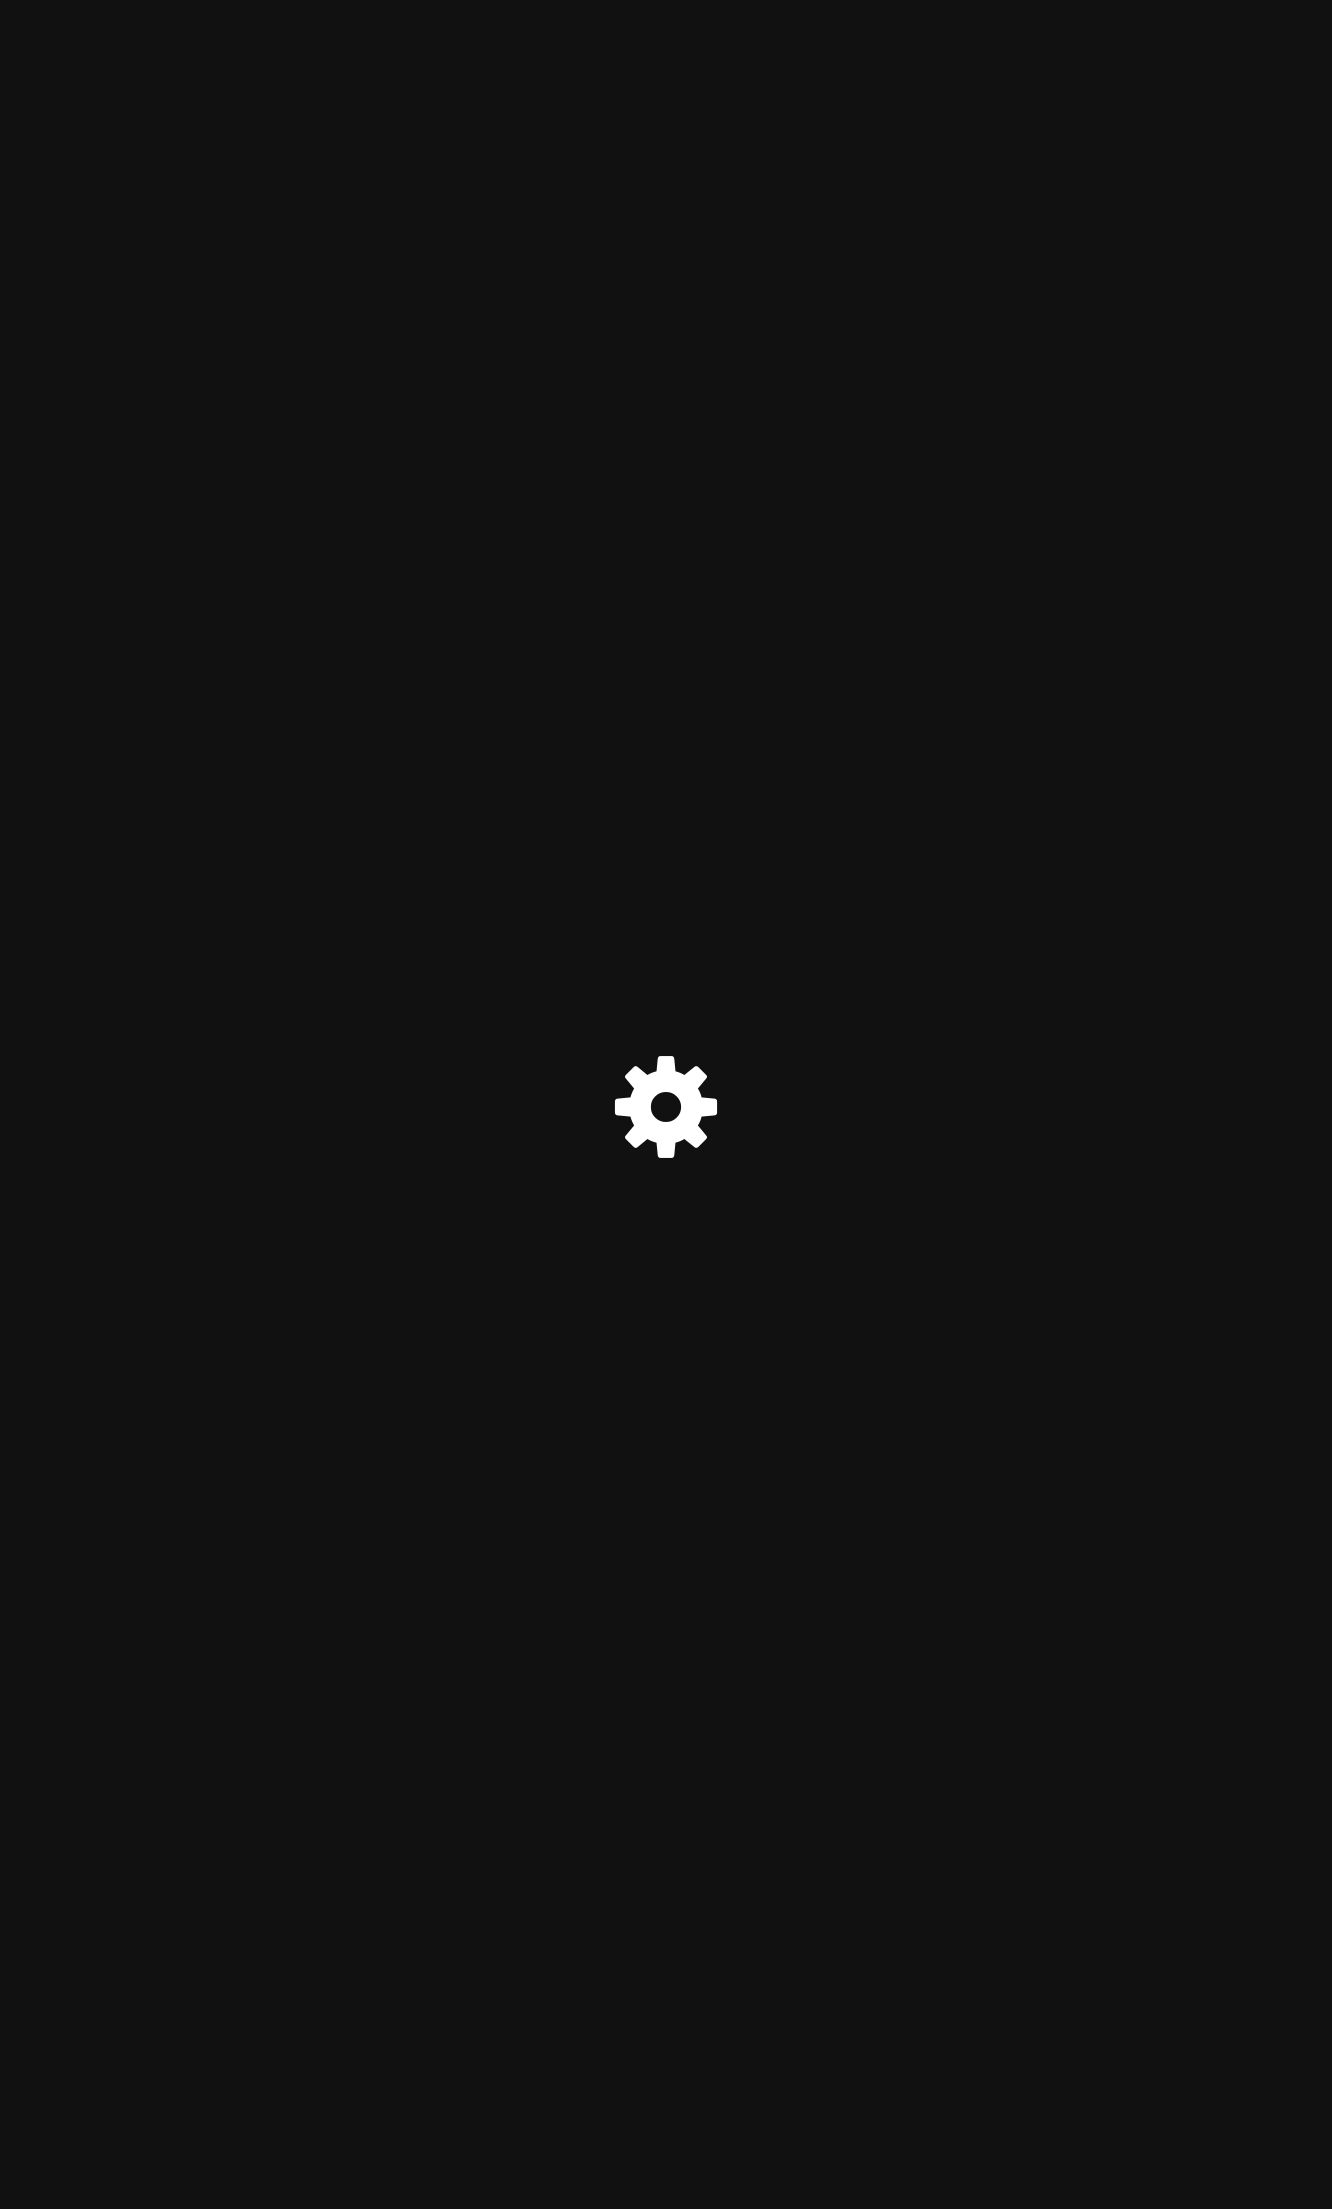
import math
import cairo

surface = cairo.ImageSurface(cairo.FORMAT_RGB24, 1332, 2209)
ctx = cairo.Context(surface)
options = cairo.FontOptions()
options.set_hint_metrics(cairo.HINT_METRICS_OFF)
options.set_hint_style(cairo.HINT_STYLE_NONE)
ctx.set_font_options(options)
ctx.set_miter_limit(4)


def picture(path, x, y, w, h):
    ctx.save()
    ctx.set_source_surface(cairo.ImageSurface.create_from_png(path), x, y)
    ctx.rectangle(x, y, w, h)
    ctx.fill()
    ctx.restore()


ctx.set_source_rgb(0.067, 0.067, 0.067)
ctx.paint()
picture("img1.png", 614, 1056, 104, 102)
surface.write_to_png("page.png")
